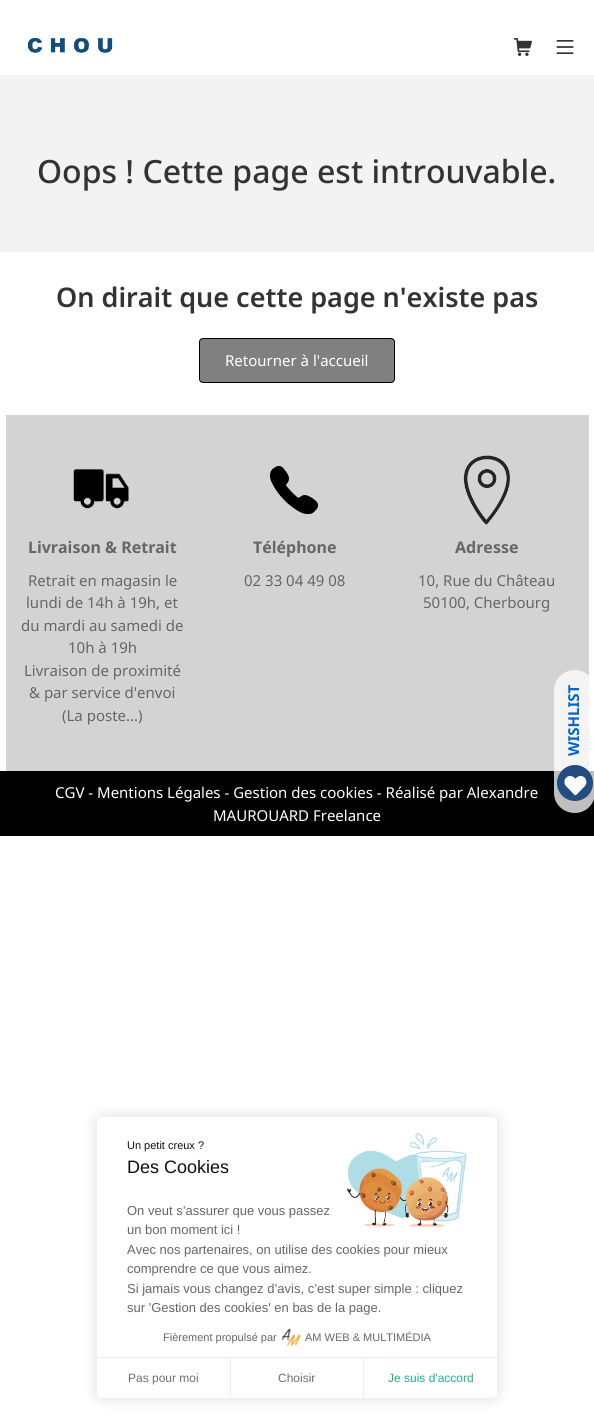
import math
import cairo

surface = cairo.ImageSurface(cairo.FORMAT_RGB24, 594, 1418)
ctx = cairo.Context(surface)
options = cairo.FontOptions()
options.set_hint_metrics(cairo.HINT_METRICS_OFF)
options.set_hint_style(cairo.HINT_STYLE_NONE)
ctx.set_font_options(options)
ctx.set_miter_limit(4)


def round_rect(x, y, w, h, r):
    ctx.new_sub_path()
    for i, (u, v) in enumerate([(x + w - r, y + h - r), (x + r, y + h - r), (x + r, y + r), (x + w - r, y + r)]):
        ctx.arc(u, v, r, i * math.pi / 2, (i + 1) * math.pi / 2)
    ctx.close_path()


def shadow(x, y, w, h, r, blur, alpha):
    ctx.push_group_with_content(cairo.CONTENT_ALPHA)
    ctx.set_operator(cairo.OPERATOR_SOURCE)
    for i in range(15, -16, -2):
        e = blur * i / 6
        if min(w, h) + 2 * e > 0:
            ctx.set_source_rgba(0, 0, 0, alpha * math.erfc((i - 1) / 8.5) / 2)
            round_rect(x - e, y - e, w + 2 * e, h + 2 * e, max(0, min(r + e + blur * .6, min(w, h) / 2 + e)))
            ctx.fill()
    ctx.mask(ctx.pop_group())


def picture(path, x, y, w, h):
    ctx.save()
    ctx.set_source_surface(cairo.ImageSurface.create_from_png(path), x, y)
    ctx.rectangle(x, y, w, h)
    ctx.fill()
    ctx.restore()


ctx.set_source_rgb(1, 1, 1)
ctx.paint()
picture("img1.png", 27, 37, 86, 16)
picture("img2.png", 514, 38, 18, 18)
picture("img3.png", 556, 40, 18, 14)
ctx.set_source_rgb(0.953, 0.953, 0.953)
ctx.rectangle(0, 75, 594, 177)
ctx.fill()
ctx.select_font_face("Noto Sans Medium")
ctx.set_font_size(32)
ctx.set_source_rgb(0.2, 0.2, 0.2)
ctx.move_to(37, 183)
ctx.show_text("Oops ! Cette page est introuvable.")
ctx.select_font_face("Noto Sans SemiBold")
ctx.set_font_size(27)
ctx.move_to(56, 307)
ctx.show_text("On dirait que cette page n'existe pas")
ctx.set_source_rgb(0.502, 0.502, 0.502)
round_rect(199.5, 338.5, 195, 44, 3.5)
ctx.fill_preserve()
ctx.set_source_rgb(0, 0, 0)
ctx.set_line_width(1)
ctx.stroke()
ctx.select_font_face("Noto Sans")
ctx.set_font_size(15)
ctx.set_source_rgb(1, 1, 1)
ctx.move_to(225, 366)
ctx.show_text("Retourner à l'accueil")
ctx.set_source_rgb(0.827, 0.827, 0.827)
ctx.rectangle(6, 415, 583, 356)
ctx.fill()
picture("img4.png", 73, 469, 56, 40)
ctx.select_font_face("Noto Sans", cairo.FONT_SLANT_NORMAL, cairo.FONT_WEIGHT_BOLD)
ctx.set_font_size(16)
ctx.set_source_rgb(0.4, 0.4, 0.4)
ctx.move_to(28, 553)
ctx.show_text("Livraison & Retrait")
ctx.select_font_face("Noto Sans")
ctx.set_font_size(15)
ctx.move_to(28, 586)
ctx.show_text("Retrait en magasin le")
ctx.move_to(26, 608)
ctx.show_text("lundi de 14h à 19h, et")
ctx.move_to(21, 631)
ctx.show_text("du mardi au samedi de")
ctx.move_to(68, 653)
ctx.show_text("10h à 19h")
ctx.move_to(24, 676)
ctx.show_text("Livraison de proximité")
ctx.move_to(29, 698)
ctx.show_text("& par service d'envoi")
ctx.move_to(62, 721)
ctx.show_text("(La poste...)")
picture("img5.png", 270, 466, 48, 48)
ctx.select_font_face("Noto Sans", cairo.FONT_SLANT_NORMAL, cairo.FONT_WEIGHT_BOLD)
ctx.set_font_size(16)
ctx.move_to(253, 553)
ctx.show_text("Téléphone")
ctx.select_font_face("Noto Sans")
ctx.set_font_size(15)
ctx.move_to(244, 586)
ctx.show_text("02 33 04 49 08")
picture("img6.png", 463, 455, 47, 70)
ctx.select_font_face("Noto Sans", cairo.FONT_SLANT_NORMAL, cairo.FONT_WEIGHT_BOLD)
ctx.set_font_size(16)
ctx.move_to(455, 553)
ctx.show_text("Adresse")
ctx.select_font_face("Noto Sans")
ctx.set_font_size(15)
ctx.move_to(418, 586)
ctx.show_text("10, Rue du Château")
ctx.move_to(423, 608)
ctx.show_text("50100, Cherbourg")
ctx.set_source_rgb(0, 0, 0)
ctx.rectangle(0, 771, 594, 65)
ctx.fill()
ctx.set_source_rgba(1, 1, 1, 0.75)
ctx.new_path()
ctx.move_to(554, 793)
ctx.line_to(554, 691)
ctx.curve_to(554, 679, 563, 670, 575, 670)
ctx.curve_to(586, 670, 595, 679, 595, 691)
ctx.line_to(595, 793)
ctx.curve_to(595, 804, 586, 813, 575, 813)
ctx.curve_to(563, 813, 554, 804, 554, 793)
ctx.close_path()
ctx.fill()
ctx.select_font_face("Noto Sans", cairo.FONT_SLANT_NORMAL, cairo.FONT_WEIGHT_BOLD)
ctx.set_source_rgb(0, 0.4, 0.8)
ctx.save()
ctx.translate(579, 756)
ctx.rotate(-90 * math.pi / 180)
ctx.move_to(0, 0)
ctx.show_text("WISHLIST")
ctx.restore()
ctx.set_source_rgb(0.137, 0.302, 0.502)
ctx.new_path()
ctx.arc(575, 783, 18, 0, 2 * math.pi)
ctx.fill()
picture("img7.png", 564, 776, 23, 20)
ctx.select_font_face("Noto Sans")
ctx.set_source_rgb(1, 1, 1)
ctx.move_to(55, 798)
ctx.show_text("CGV - Mentions Légales - Gestion des cookies - Réalisé par Alexandre")
ctx.move_to(213, 821)
ctx.show_text("MAUROUARD Freelance")
ctx.set_source_rgb(0, 0, 0)
shadow(97, 1117, 400, 281, 5, 7.5, 0.14)
ctx.set_source_rgb(1, 1, 1)
round_rect(97, 1117, 400, 281, 5)
ctx.fill()
ctx.select_font_face("Liberation Sans")
ctx.set_font_size(11)
ctx.set_source_rgb(0.059, 0.059, 0.059)
ctx.move_to(127, 1149)
ctx.show_text("Un petit creux ?")
ctx.set_font_size(18)
ctx.move_to(127, 1173)
ctx.show_text("Des Cookies")
picture("img8.png", 347, 1133, 120, 94)
ctx.set_font_size(13)
ctx.set_source_rgb(0.4, 0.4, 0.4)
ctx.move_to(127, 1215)
ctx.show_text("On veut s’assurer que vous passez")
ctx.move_to(127, 1234)
ctx.show_text("un bon moment ici !")
ctx.move_to(127, 1254)
ctx.show_text("Avec nos partenaires, on utilise des cookies pour mieux")
ctx.move_to(127, 1273)
ctx.show_text("comprendre ce que vous aimez.")
ctx.move_to(127, 1293)
ctx.show_text("Si jamais vous changez d’avis, c’est super simple : cliquez")
ctx.move_to(127, 1312)
ctx.show_text("sur 'Gestion des cookies' en bas de la page.")
ctx.set_font_size(11)
ctx.move_to(163, 1341)
ctx.show_text("Fièrement propulsé par")
picture("img9.png", 282, 1328, 19, 19)
ctx.move_to(305, 1341)
ctx.show_text("AM WEB & MULTIMÉDIA")
ctx.set_source_rgb(0.922, 0.925, 0.914)
ctx.rectangle(97, 1357, 400, 1)
ctx.fill()
ctx.set_source_rgb(1, 1, 1)
ctx.new_path()
ctx.move_to(97, 1358)
ctx.line_to(231, 1358)
ctx.line_to(231, 1398)
ctx.line_to(102, 1398)
ctx.curve_to(99, 1398, 97, 1396, 97, 1393)
ctx.close_path()
ctx.fill()
ctx.set_source_rgb(0.922, 0.925, 0.914)
ctx.rectangle(230, 1358, 1, 40)
ctx.fill()
ctx.set_font_size(12)
ctx.set_source_rgb(0.435, 0.435, 0.435)
ctx.move_to(128, 1382)
ctx.show_text("Pas pour moi")
ctx.set_source_rgb(0.922, 0.925, 0.914)
ctx.rectangle(363, 1358, 1, 40)
ctx.fill()
ctx.set_source_rgb(0.435, 0.435, 0.435)
ctx.move_to(278, 1382)
ctx.show_text("Choisir")
ctx.set_source_rgb(1, 1, 1)
ctx.new_path()
ctx.move_to(364, 1358)
ctx.line_to(497, 1358)
ctx.line_to(497, 1393)
ctx.curve_to(497, 1396, 495, 1398, 492, 1398)
ctx.line_to(364, 1398)
ctx.close_path()
ctx.fill()
ctx.set_source_rgb(0.137, 0.682, 0.518)
ctx.move_to(388, 1382)
ctx.show_text("Je suis d'accord")
surface.write_to_png("page.png")
